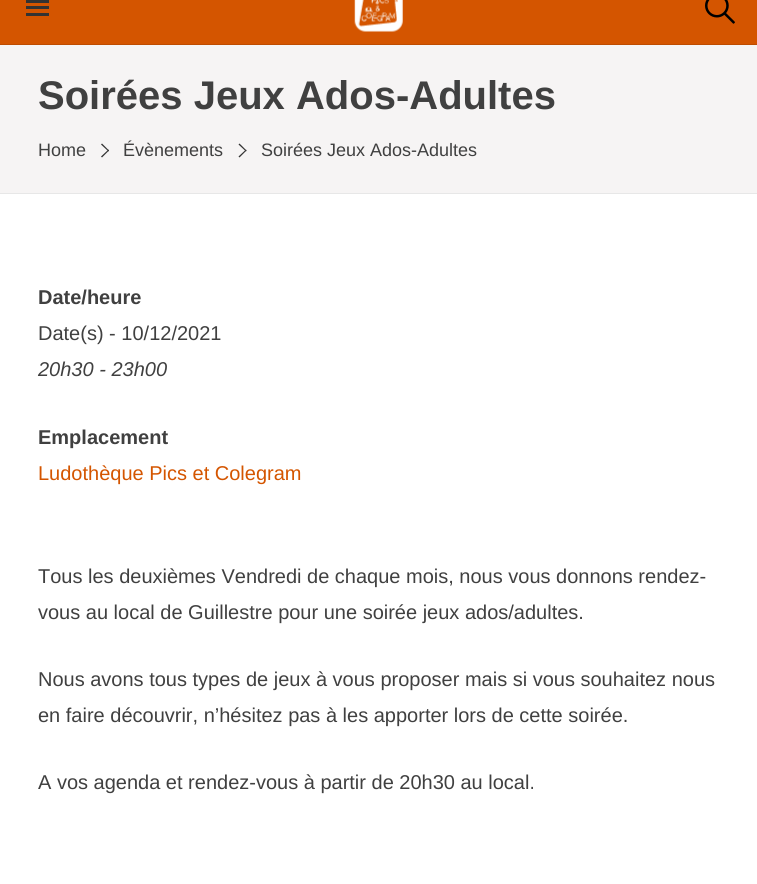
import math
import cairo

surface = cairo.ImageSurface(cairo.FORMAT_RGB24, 757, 884)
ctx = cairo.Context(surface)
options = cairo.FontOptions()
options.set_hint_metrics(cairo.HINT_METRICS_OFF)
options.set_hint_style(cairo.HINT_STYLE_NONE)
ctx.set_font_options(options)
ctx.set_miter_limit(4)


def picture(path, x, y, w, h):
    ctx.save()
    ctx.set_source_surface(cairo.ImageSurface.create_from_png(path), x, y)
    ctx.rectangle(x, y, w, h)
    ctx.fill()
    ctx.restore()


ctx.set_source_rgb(1, 1, 1)
ctx.paint()
ctx.set_source_rgb(0.831, 0.333, 0)
ctx.rectangle(0, 0, 757, 44)
ctx.fill()
ctx.set_source_rgb(0.745, 0.298, 0)
ctx.rectangle(0, 44, 757, 1)
ctx.fill()
ctx.set_source_rgb(0.2, 0.2, 0.2)
ctx.rectangle(26, 6, 23, 3)
ctx.fill()
ctx.rectangle(26, 0, 23, 3)
ctx.fill()
ctx.rectangle(26, 13, 23, 3)
ctx.fill()
picture("img1.png", 354, 0, 49, 32)
picture("img2.png", 705, 0, 30, 24)
ctx.set_source_rgb(0.961, 0.957, 0.957)
ctx.rectangle(0, 45, 757, 148)
ctx.fill()
ctx.set_source_rgb(0.906, 0.906, 0.906)
ctx.rectangle(0, 193, 757, 1)
ctx.fill()
ctx.select_font_face("Liberation Sans", cairo.FONT_SLANT_NORMAL, cairo.FONT_WEIGHT_BOLD)
ctx.set_font_size(40)
ctx.set_source_rgb(0.251, 0.251, 0.251)
ctx.move_to(38, 109)
ctx.show_text("Soirées Jeux Ados-Adultes")
ctx.select_font_face("Liberation Sans")
ctx.set_font_size(18)
ctx.move_to(38, 156)
ctx.show_text("Home")
ctx.set_source_rgb(0.2, 0.2, 0.2)
ctx.new_path()
ctx.move_to(109, 150.5)
ctx.line_to(102, 157.5)
ctx.line_to(101, 156.5)
ctx.line_to(108.5, 149.5)
ctx.close_path()
ctx.fill()
ctx.new_path()
ctx.move_to(109, 150.5)
ctx.line_to(108.5, 151.5)
ctx.line_to(101, 144.5)
ctx.line_to(102, 143.5)
ctx.close_path()
ctx.fill()
ctx.set_source_rgb(0.251, 0.251, 0.251)
ctx.move_to(123, 156)
ctx.show_text("Évènements")
ctx.set_source_rgb(0.2, 0.2, 0.2)
ctx.new_path()
ctx.move_to(246.5, 150.5)
ctx.line_to(239.5, 157.5)
ctx.line_to(238.5, 156.5)
ctx.line_to(246, 149.5)
ctx.close_path()
ctx.fill()
ctx.new_path()
ctx.move_to(246.5, 150.5)
ctx.line_to(246, 151.5)
ctx.line_to(238.5, 144.5)
ctx.line_to(239.5, 143.5)
ctx.close_path()
ctx.fill()
ctx.set_source_rgb(0.251, 0.251, 0.251)
ctx.move_to(261, 156)
ctx.show_text("Soirées Jeux Ados-Adultes")
ctx.select_font_face("Liberation Sans", cairo.FONT_SLANT_NORMAL, cairo.FONT_WEIGHT_BOLD)
ctx.set_font_size(20)
ctx.move_to(38, 304)
ctx.show_text("Date/heure")
ctx.select_font_face("Liberation Sans")
ctx.move_to(38, 340)
ctx.show_text("Date(s) - 10/12/2021")
ctx.select_font_face("Liberation Sans", cairo.FONT_SLANT_ITALIC)
ctx.move_to(38, 376)
ctx.show_text("20h30 - 23h00")
ctx.select_font_face("Liberation Sans", cairo.FONT_SLANT_NORMAL, cairo.FONT_WEIGHT_BOLD)
ctx.move_to(38, 444)
ctx.show_text("Emplacement")
ctx.select_font_face("Liberation Sans")
ctx.set_source_rgb(0.831, 0.333, 0)
ctx.move_to(38, 480)
ctx.show_text("Ludothèque Pics et Colegram")
ctx.set_source_rgb(0.251, 0.251, 0.251)
ctx.move_to(38, 583)
ctx.show_text("Tous les deuxièmes Vendredi de chaque mois, nous vous donnons rendez-")
ctx.move_to(38, 619)
ctx.show_text("vous au local de Guillestre pour une soirée jeux ados/adultes.")
ctx.move_to(38, 686)
ctx.show_text("Nous avons tous types de jeux à vous proposer mais si vous souhaitez nous")
ctx.move_to(38, 722)
ctx.show_text("en faire découvrir, n’hésitez pas à les apporter lors de cette soirée.")
ctx.move_to(38, 789)
ctx.show_text("A vos agenda et rendez-vous à partir de 20h30 au local.")
surface.write_to_png("page.png")
